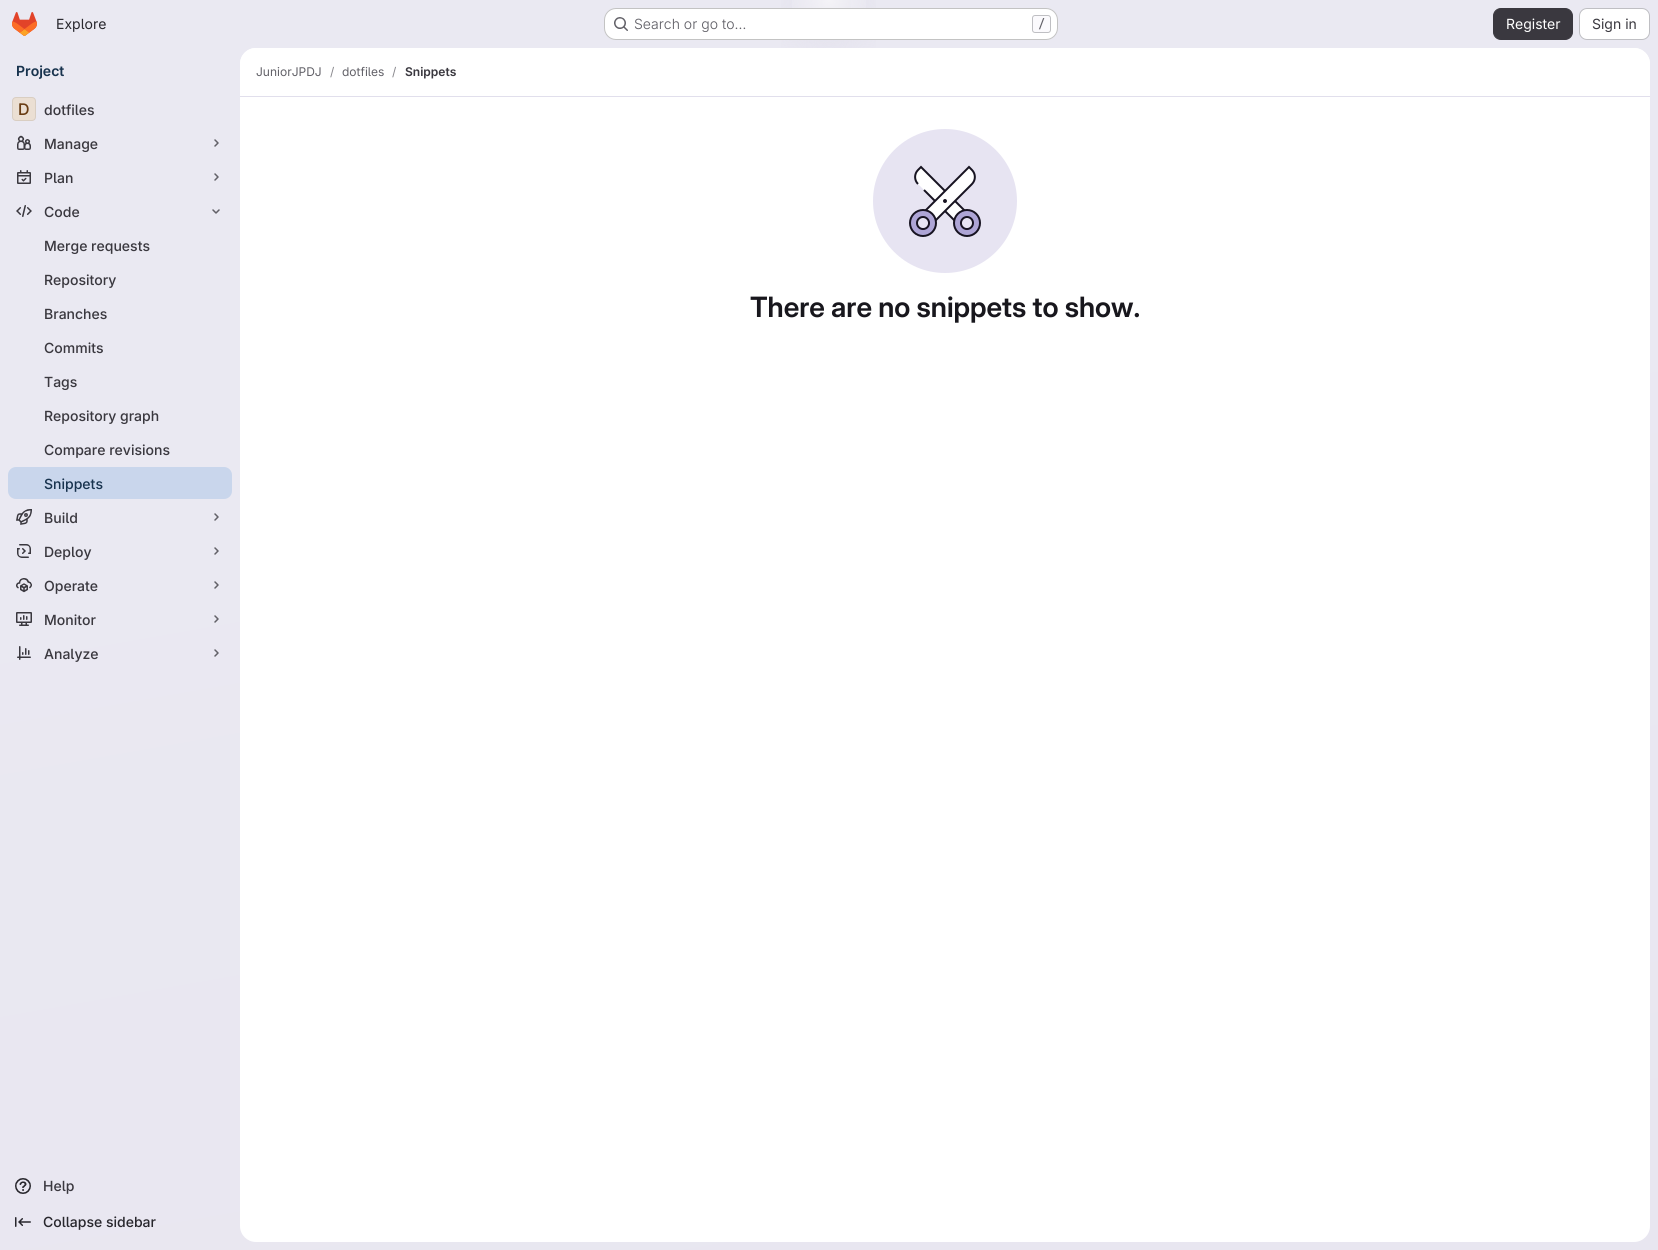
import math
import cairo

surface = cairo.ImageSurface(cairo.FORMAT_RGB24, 1658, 1250)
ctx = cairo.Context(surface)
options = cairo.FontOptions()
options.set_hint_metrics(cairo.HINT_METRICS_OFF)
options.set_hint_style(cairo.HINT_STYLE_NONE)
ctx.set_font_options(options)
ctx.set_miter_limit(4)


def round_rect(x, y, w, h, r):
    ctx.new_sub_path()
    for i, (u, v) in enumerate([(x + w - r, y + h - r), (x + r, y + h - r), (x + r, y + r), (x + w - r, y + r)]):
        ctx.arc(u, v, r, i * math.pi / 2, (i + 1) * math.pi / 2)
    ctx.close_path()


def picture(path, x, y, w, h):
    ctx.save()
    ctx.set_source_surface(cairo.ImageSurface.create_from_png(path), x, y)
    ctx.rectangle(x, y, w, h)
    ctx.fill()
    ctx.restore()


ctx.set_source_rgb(1, 1, 1)
ctx.paint()
gradient = cairo.LinearGradient(961, 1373, 697, -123)
gradient.add_color_stop_rgba(0, 0.91, 0.902, 0.941, 1)
gradient.add_color_stop_rgba(0.7, 0.918, 0.914, 0.949, 1)
ctx.set_source(gradient)
ctx.rectangle(0, 0, 1658, 1250)
ctx.fill()
gradient = cairo.RadialGradient(0, 0, 0, 0, 0, 1)
gradient.set_matrix(cairo.Matrix(1 / 829, 0, 0, 1 / 1250, -1 * 829 / 829, -1 * 0 / 1250))
gradient.add_color_stop_rgba(0, 0.894, 0.886, 0.929, 1)
gradient.add_color_stop_rgba(0.08, 0.894, 0.886, 0.929, 0)
ctx.set_source(gradient)
ctx.rectangle(781, 0, 95, 48)
ctx.fill()
gradient = cairo.RadialGradient(0, 0, 0, 0, 0, 1)
gradient.set_matrix(cairo.Matrix(1 / 829, 0, 0, 1 / 1250, -1 * 829 / 829, -1 * 0 / 1250))
gradient.add_color_stop_rgba(0, 0.894, 0.886, 0.925, 1)
gradient.add_color_stop_rgba(0.06, 0.894, 0.886, 0.925, 0)
ctx.set_source(gradient)
ctx.rectangle(820, 0, 31, 35)
ctx.fill()
gradient = cairo.RadialGradient(829, 0, 0, 829, 0, 1500)
gradient.add_color_stop_rgba(0, 1, 1, 1, 0.6)
gradient.add_color_stop_rgba(0.03, 1, 1, 1, 0)
ctx.set_source(gradient)
ctx.rectangle(792, 0, 74, 38)
ctx.fill()
picture("img1.png", 12, 12, 25, 24)
ctx.select_font_face("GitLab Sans")
ctx.set_font_size(14)
ctx.set_source_rgb(0.157, 0.153, 0.176)
ctx.move_to(56, 29)
ctx.show_text("Explore")
ctx.set_source_rgb(1, 1, 1)
round_rect(604, 8, 454, 32, 12)
ctx.fill()
round_rect(604.5, 8.5, 453, 31, 11.5)
ctx.set_source_rgba(0.02, 0.02, 0.024, 0.24)
ctx.set_line_width(1)
ctx.stroke()
picture("img2.png", 614, 17, 14, 14)
ctx.select_font_face("GitLab Sans Light")
ctx.set_source_rgb(0.384, 0.38, 0.408)
ctx.move_to(634, 29)
ctx.show_text("Search or go to…")
ctx.set_source_rgb(0.984, 0.98, 0.992)
round_rect(1032.5, 15.5, 18, 17, 2.5)
ctx.fill_preserve()
ctx.set_source_rgb(0.749, 0.749, 0.765)
ctx.stroke()
ctx.select_font_face("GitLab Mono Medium")
ctx.set_font_size(12)
ctx.set_source_rgb(0.384, 0.38, 0.408)
ctx.move_to(1038, 28)
ctx.show_text("/")
ctx.set_source_rgb(0.227, 0.22, 0.247)
round_rect(1493.5, 8.5, 79, 31, 7.5)
ctx.fill_preserve()
ctx.stroke()
ctx.select_font_face("GitLab Sans")
ctx.set_font_size(14)
ctx.set_source_rgb(1, 1, 1)
ctx.move_to(1506, 29)
ctx.show_text("Register")
round_rect(1579.5, 8.5, 70, 31, 7.5)
ctx.fill_preserve()
ctx.set_source_rgb(0.749, 0.749, 0.765)
ctx.stroke()
ctx.set_source_rgb(0.227, 0.22, 0.247)
ctx.move_to(1592, 29)
ctx.show_text("Sign in")
ctx.select_font_face("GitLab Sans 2 SemiBold")
ctx.set_source_rgb(0.094, 0.2, 0.306)
ctx.move_to(16, 76)
ctx.show_text("Project")
ctx.set_source_rgb(0.918, 0.875, 0.827)
round_rect(12, 97, 24, 24, 4)
ctx.fill()
round_rect(12.5, 97.5, 23, 23, 3.5)
ctx.set_source_rgba(0.02, 0.02, 0.024, 0.08)
ctx.stroke()
ctx.select_font_face("GitLab Sans 2 Medium")
ctx.set_font_size(16)
ctx.set_source_rgb(0.412, 0.235, 0.078)
ctx.move_to(18, 115)
ctx.show_text("D")
ctx.select_font_face("GitLab Sans Medium")
ctx.set_font_size(14)
ctx.set_source_rgb(0.227, 0.22, 0.247)
ctx.move_to(44, 115)
ctx.show_text("dotfiles")
picture("img3.png", 17, 135, 14, 15)
ctx.move_to(44, 149)
ctx.show_text("Manage")
ctx.new_path()
ctx.move_to(215, 140)
ctx.line_to(218, 143)
ctx.line_to(215, 146)
ctx.set_source_rgb(0.384, 0.38, 0.408)
ctx.set_line_width(1.5)
ctx.set_line_cap(cairo.LINE_CAP_ROUND)
ctx.set_line_join(cairo.LINE_JOIN_ROUND)
ctx.stroke()
picture("img4.png", 17, 170, 14, 14)
ctx.set_source_rgb(0.227, 0.22, 0.247)
ctx.move_to(44, 183)
ctx.show_text("Plan")
ctx.new_path()
ctx.move_to(215, 174)
ctx.line_to(218, 177)
ctx.line_to(215, 180)
ctx.set_source_rgb(0.384, 0.38, 0.408)
ctx.stroke()
picture("img5.png", 16, 205, 16, 12)
ctx.set_source_rgb(0.227, 0.22, 0.247)
ctx.move_to(44, 217)
ctx.show_text("Code")
ctx.new_path()
ctx.move_to(219, 210)
ctx.line_to(216, 213)
ctx.line_to(213, 210)
ctx.set_source_rgb(0.384, 0.38, 0.408)
ctx.stroke()
ctx.set_source_rgb(0.227, 0.22, 0.247)
ctx.move_to(44, 251)
ctx.show_text("Merge requests")
ctx.move_to(44, 285)
ctx.show_text("Repository")
ctx.move_to(44, 319)
ctx.show_text("Branches")
ctx.move_to(44, 353)
ctx.show_text("Commits")
ctx.move_to(44, 387)
ctx.show_text("Tags")
ctx.move_to(44, 421)
ctx.show_text("Repository graph")
ctx.move_to(44, 455)
ctx.show_text("Compare revisions")
ctx.set_source_rgb(0.788, 0.839, 0.922)
round_rect(8, 467, 224, 32, 8)
ctx.fill()
ctx.set_source_rgb(0.094, 0.2, 0.306)
ctx.move_to(44, 489)
ctx.show_text("Snippets")
picture("img6.png", 16, 509, 16, 16)
ctx.set_source_rgb(0.227, 0.22, 0.247)
ctx.move_to(44, 523)
ctx.show_text("Build")
ctx.new_path()
ctx.move_to(215, 514)
ctx.line_to(218, 517)
ctx.line_to(215, 520)
ctx.set_source_rgb(0.384, 0.38, 0.408)
ctx.stroke()
picture("img7.png", 17, 544, 14, 14)
ctx.set_source_rgb(0.227, 0.22, 0.247)
ctx.move_to(44, 557)
ctx.show_text("Deploy")
ctx.new_path()
ctx.move_to(215, 548)
ctx.line_to(218, 551)
ctx.line_to(215, 554)
ctx.set_source_rgb(0.384, 0.38, 0.408)
ctx.stroke()
picture("img8.png", 16, 578, 16, 15)
ctx.set_source_rgb(0.227, 0.22, 0.247)
ctx.move_to(44, 591)
ctx.show_text("Operate")
ctx.new_path()
ctx.move_to(215, 582)
ctx.line_to(218, 585)
ctx.line_to(215, 588)
ctx.set_source_rgb(0.384, 0.38, 0.408)
ctx.stroke()
picture("img9.png", 16, 612, 16, 14)
ctx.set_source_rgb(0.227, 0.22, 0.247)
ctx.move_to(44, 625)
ctx.show_text("Monitor")
ctx.new_path()
ctx.move_to(215, 616)
ctx.line_to(218, 619)
ctx.line_to(215, 622)
ctx.set_source_rgb(0.384, 0.38, 0.408)
ctx.stroke()
picture("img10.png", 17, 646, 14, 14)
ctx.set_source_rgb(0.227, 0.22, 0.247)
ctx.move_to(44, 659)
ctx.show_text("Analyze")
ctx.new_path()
ctx.move_to(215, 650)
ctx.line_to(218, 653)
ctx.line_to(215, 656)
ctx.set_source_rgb(0.384, 0.38, 0.408)
ctx.stroke()
picture("img11.png", 15, 1178, 16, 16)
ctx.set_source_rgb(0.227, 0.22, 0.247)
ctx.move_to(43, 1191)
ctx.show_text("Help")
picture("img12.png", 15, 1217, 16, 10)
ctx.set_source_rgb(0.157, 0.153, 0.176)
ctx.move_to(43, 1227)
ctx.show_text("Collapse sidebar")
ctx.set_source_rgb(1, 1, 1)
round_rect(240, 48, 1410, 1194, 16)
ctx.fill()
ctx.new_path()
ctx.move_to(256, 48)
ctx.line_to(1634, 48)
ctx.curve_to(1643, 48, 1650, 55, 1650, 64)
ctx.line_to(1650, 97)
ctx.line_to(240, 97)
ctx.line_to(240, 64)
ctx.curve_to(240, 55, 247, 48, 256, 48)
ctx.close_path()
ctx.fill()
ctx.set_source_rgb(0.882, 0.875, 0.925)
ctx.rectangle(240, 96, 1410, 1)
ctx.fill()
ctx.select_font_face("GitLab Sans")
ctx.set_font_size(12)
ctx.set_source_rgb(0.384, 0.38, 0.408)
ctx.move_to(256, 76)
ctx.show_text("JuniorJPDJ")
ctx.set_source_rgb(0.537, 0.533, 0.553)
ctx.move_to(330, 76)
ctx.show_text("/")
ctx.set_source_rgb(0.384, 0.38, 0.408)
ctx.move_to(342, 76)
ctx.show_text("dotfiles")
ctx.set_source_rgb(0.537, 0.533, 0.553)
ctx.move_to(392, 76)
ctx.show_text("/")
ctx.select_font_face("GitLab Sans 2 SemiBold")
ctx.set_source_rgb(0.227, 0.22, 0.247)
ctx.move_to(405, 76)
ctx.show_text("Snippets")
picture("img13.png", 873, 129, 144, 144)
ctx.select_font_face("GitLab Sans SemiBold")
ctx.set_font_size(28)
ctx.set_source_rgb(0.094, 0.09, 0.114)
ctx.move_to(750, 317)
ctx.show_text("There are no snippets to show.")
surface.write_to_png("page.png")
